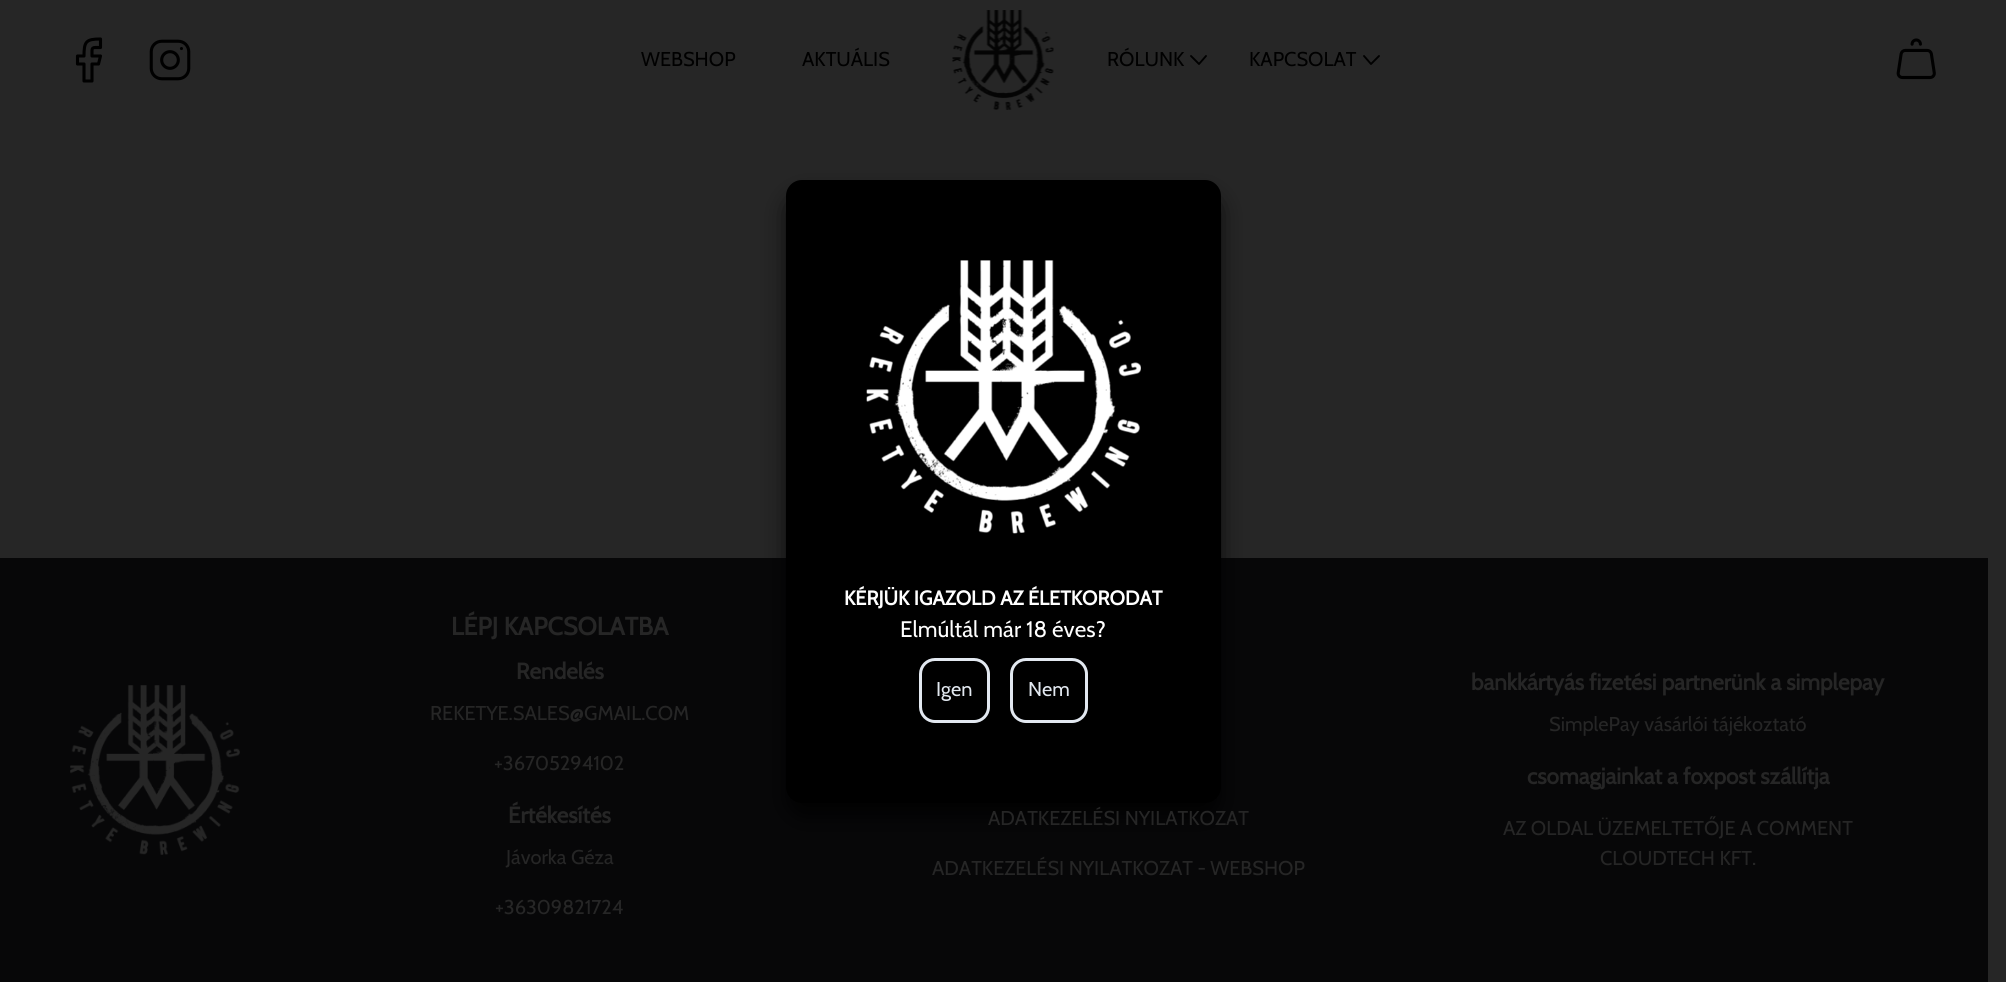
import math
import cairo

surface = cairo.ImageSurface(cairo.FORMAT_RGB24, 2006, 982)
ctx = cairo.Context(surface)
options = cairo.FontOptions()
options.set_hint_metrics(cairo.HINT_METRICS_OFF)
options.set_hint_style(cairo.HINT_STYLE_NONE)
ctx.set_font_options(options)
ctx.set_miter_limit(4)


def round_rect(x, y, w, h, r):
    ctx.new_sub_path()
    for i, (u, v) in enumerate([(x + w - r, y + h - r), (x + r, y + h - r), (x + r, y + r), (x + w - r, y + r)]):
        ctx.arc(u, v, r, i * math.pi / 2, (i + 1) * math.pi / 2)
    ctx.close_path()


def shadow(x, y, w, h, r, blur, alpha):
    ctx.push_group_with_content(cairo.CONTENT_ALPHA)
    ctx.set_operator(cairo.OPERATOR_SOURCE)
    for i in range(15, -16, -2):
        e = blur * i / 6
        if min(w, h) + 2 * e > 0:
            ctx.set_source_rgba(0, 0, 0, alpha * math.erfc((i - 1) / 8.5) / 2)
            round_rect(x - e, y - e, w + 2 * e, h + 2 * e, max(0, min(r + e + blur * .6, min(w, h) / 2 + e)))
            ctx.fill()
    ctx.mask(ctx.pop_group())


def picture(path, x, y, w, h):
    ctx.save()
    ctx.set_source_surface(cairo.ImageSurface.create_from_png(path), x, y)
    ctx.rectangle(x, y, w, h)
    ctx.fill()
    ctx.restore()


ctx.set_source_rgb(0.149, 0.149, 0.149)
ctx.paint()
ctx.new_path()
ctx.move_to(100.5, 39)
ctx.curve_to(86, 39, 84, 41.5, 84, 56)
ctx.line_to(77.5, 56)
ctx.line_to(77.5, 64)
ctx.line_to(84, 64)
ctx.line_to(84, 81)
ctx.line_to(92, 81)
ctx.line_to(92, 64)
ctx.line_to(98.5, 64)
ctx.line_to(100.5, 56)
ctx.line_to(92, 56)
ctx.curve_to(92, 46.5, 91, 47.5, 100.5, 47.5)
ctx.close_path()
ctx.set_source_rgb(0, 0, 0)
ctx.set_line_width(3.1)
ctx.set_line_cap(cairo.LINE_CAP_ROUND)
ctx.set_line_join(cairo.LINE_JOIN_ROUND)
ctx.stroke()
picture("img1.png", 149, 39, 42, 42)
ctx.select_font_face("Cabin")
ctx.set_font_size(20)
ctx.move_to(641, 66)
ctx.show_text("WEBSHOP")
ctx.move_to(802, 66)
ctx.show_text("AKTUÁLIS")
picture("img2.png", 952, 10, 102, 100)
ctx.move_to(1107, 66)
ctx.show_text("RÓLUNK")
ctx.new_path()
ctx.move_to(1191, 56)
ctx.line_to(1199, 64)
ctx.line_to(1206, 56)
ctx.set_line_width(1.9)
ctx.stroke()
ctx.move_to(1249, 66)
ctx.show_text("KAPCSOLAT")
ctx.new_path()
ctx.move_to(1364, 56)
ctx.line_to(1371, 64)
ctx.line_to(1379, 56)
ctx.stroke()
picture("img3.png", 1896, 38, 40, 42)
ctx.set_source_rgb(0.031, 0.031, 0.035)
ctx.rectangle(0, 558, 1988, 424)
ctx.fill()
ctx.set_source_rgb(0, 0, 0)
shadow(791, 200, 425, 613, 11, 12.5, 1)
ctx.set_source_rgb(0, 0, 0)
round_rect(786, 180, 435, 623, 16)
ctx.fill()
picture("img4.png", 866, 260, 275, 274)
ctx.select_font_face("Cabin", cairo.FONT_SLANT_NORMAL, cairo.FONT_WEIGHT_BOLD)
ctx.set_source_rgb(1, 1, 1)
ctx.move_to(844, 605)
ctx.show_text("KÉRJÜK IGAZOLD AZ ÉLETKORODAT")
ctx.select_font_face("Cabin")
ctx.set_font_size(22.5)
ctx.move_to(900, 637)
ctx.show_text("Elmúltál már 18 éves?")
round_rect(920.5, 659.5, 68, 62, 14.5)
ctx.set_source_rgb(0.886, 0.91, 0.941)
ctx.set_line_width(3)
ctx.set_line_cap(cairo.LINE_CAP_BUTT)
ctx.set_line_join(cairo.LINE_JOIN_MITER)
ctx.stroke()
ctx.set_font_size(20)
ctx.move_to(936, 696)
ctx.show_text("Igen")
round_rect(1011.5, 659.5, 75, 62, 14.5)
ctx.stroke()
ctx.move_to(1028, 696)
ctx.show_text("Nem")
picture("img5.png", 70, 685, 170, 170)
ctx.select_font_face("Cabin", cairo.FONT_SLANT_NORMAL, cairo.FONT_WEIGHT_BOLD)
ctx.set_font_size(25)
ctx.set_source_rgb(0.149, 0.149, 0.149)
ctx.move_to(451, 635)
ctx.show_text("LÉPJ KAPCSOLATBA")
ctx.set_font_size(22.5)
ctx.move_to(516, 679)
ctx.show_text("Rendelés")
ctx.select_font_face("Cabin")
ctx.set_font_size(20)
ctx.move_to(430, 720)
ctx.show_text("REKETYE.SALES@GMAIL.COM")
ctx.move_to(494, 770)
ctx.show_text("+36705294102")
ctx.select_font_face("Cabin", cairo.FONT_SLANT_NORMAL, cairo.FONT_WEIGHT_BOLD)
ctx.set_font_size(22.5)
ctx.move_to(508, 823)
ctx.show_text("Értékesítés")
ctx.select_font_face("Cabin")
ctx.set_font_size(20)
ctx.move_to(506, 864)
ctx.show_text("Jávorka Géza")
ctx.move_to(495, 914)
ctx.show_text("+36309821724")
ctx.move_to(988, 825)
ctx.show_text("ADATKEZELÉSI NYILATKOZAT")
ctx.move_to(932, 875)
ctx.show_text("ADATKEZELÉSI NYILATKOZAT - WEBSHOP")
ctx.select_font_face("Cabin", cairo.FONT_SLANT_NORMAL, cairo.FONT_WEIGHT_BOLD)
ctx.set_font_size(22.5)
ctx.move_to(1471, 690)
ctx.show_text("bankkártyás fizetési partnerünk a simplepay")
ctx.select_font_face("Cabin")
ctx.set_font_size(20)
ctx.move_to(1549, 731)
ctx.show_text("SimplePay vásárlói tájékoztató")
ctx.select_font_face("Cabin", cairo.FONT_SLANT_NORMAL, cairo.FONT_WEIGHT_BOLD)
ctx.set_font_size(22.5)
ctx.move_to(1527, 784)
ctx.show_text("csomagjainkat a foxpost szállítja")
ctx.select_font_face("Cabin")
ctx.set_font_size(20)
ctx.move_to(1503, 835)
ctx.show_text("AZ OLDAL ÜZEMELTETŐJE A COMMENT")
ctx.move_to(1600, 865)
ctx.show_text("CLOUDTECH KFT.")
surface.write_to_png("page.png")
